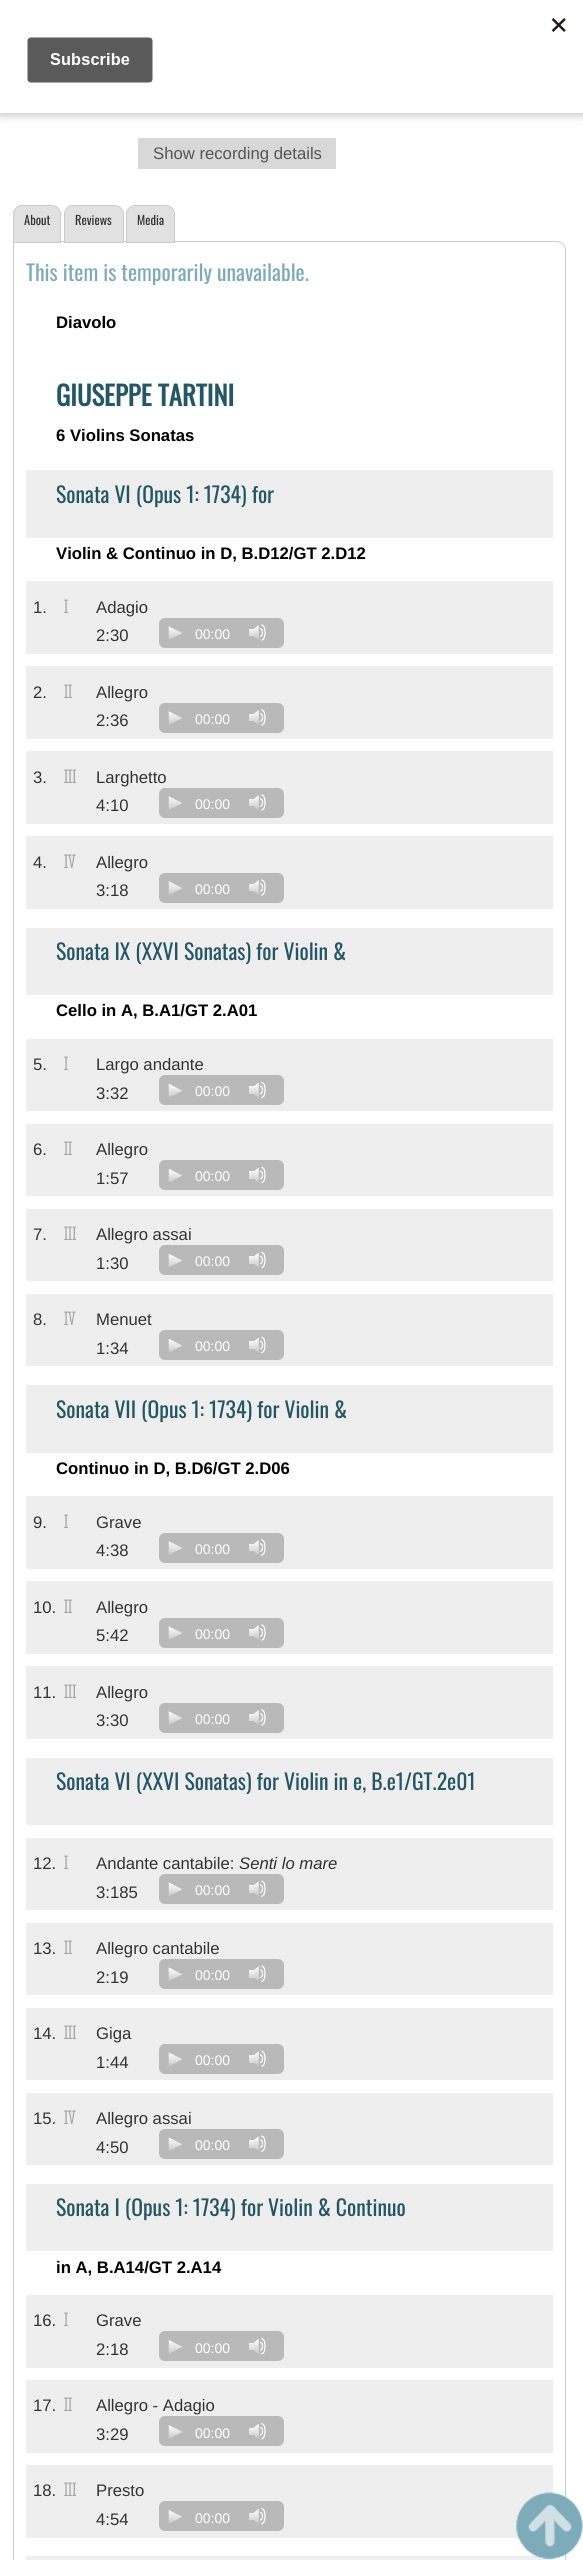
import math
import cairo

surface = cairo.ImageSurface(cairo.FORMAT_RGB24, 583, 2560)
ctx = cairo.Context(surface)
options = cairo.FontOptions()
options.set_hint_metrics(cairo.HINT_METRICS_OFF)
options.set_hint_style(cairo.HINT_STYLE_NONE)
ctx.set_font_options(options)
ctx.set_miter_limit(4)


def round_rect(x, y, w, h, r):
    ctx.new_sub_path()
    for i, (u, v) in enumerate([(x + w - r, y + h - r), (x + r, y + h - r), (x + r, y + r), (x + w - r, y + r)]):
        ctx.arc(u, v, r, i * math.pi / 2, (i + 1) * math.pi / 2)
    ctx.close_path()


def shadow(x, y, w, h, r, blur, alpha):
    ctx.push_group_with_content(cairo.CONTENT_ALPHA)
    ctx.set_operator(cairo.OPERATOR_SOURCE)
    for i in range(15, -16, -2):
        e = blur * i / 6
        if min(w, h) + 2 * e > 0:
            ctx.set_source_rgba(0, 0, 0, alpha * math.erfc((i - 1) / 8.5) / 2)
            round_rect(x - e, y - e, w + 2 * e, h + 2 * e, max(0, min(r + e + blur * .6, min(w, h) / 2 + e)))
            ctx.fill()
    ctx.mask(ctx.pop_group())


def picture(path, x, y, w, h):
    ctx.save()
    ctx.set_source_surface(cairo.ImageSurface.create_from_png(path), x, y)
    ctx.rectangle(x, y, w, h)
    ctx.fill()
    ctx.restore()


ctx.set_source_rgb(1, 1, 1)
ctx.paint()
ctx.set_source_rgb(0, 0, 0)
shadow(0, 4, 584, 112, 0, 4, 0.2)
ctx.set_source_rgb(1, 1, 1)
ctx.rectangle(0, 0, 583, 113)
ctx.fill()
picture("img1.png", 27, 18, 539, 65)
ctx.set_source_rgb(0.847, 0.847, 0.847)
ctx.rectangle(138, 138, 198, 31)
ctx.fill()
ctx.select_font_face("Liberation Sans")
ctx.set_font_size(16.7)
ctx.set_source_rgb(0.333, 0.333, 0.333)
ctx.move_to(153, 159)
ctx.show_text("Show recording details")
ctx.new_path()
ctx.move_to(13.5, 241.5)
ctx.line_to(557, 241.5)
ctx.curve_to(561.5, 241.5, 565.5, 245.5, 565.5, 250)
ctx.line_to(565.5, 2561)
ctx.curve_to(565.5, 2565.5, 561.5, 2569.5, 557, 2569.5)
ctx.line_to(22, 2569.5)
ctx.curve_to(17.5, 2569.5, 13.5, 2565.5, 13.5, 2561)
ctx.close_path()
ctx.set_source_rgb(0.8, 0.8, 0.8)
ctx.set_line_width(1)
ctx.stroke()
ctx.set_source_rgb(0.882, 0.882, 0.882)
ctx.new_path()
ctx.move_to(22, 205.5)
ctx.line_to(52, 205.5)
ctx.curve_to(56.5, 205.5, 60.5, 209.5, 60.5, 214)
ctx.line_to(60.5, 242.5)
ctx.line_to(13.5, 242.5)
ctx.line_to(13.5, 214)
ctx.curve_to(13.5, 209.5, 17.5, 205.5, 22, 205.5)
ctx.close_path()
ctx.fill_preserve()
ctx.set_source_rgb(0.8, 0.8, 0.8)
ctx.stroke()
ctx.select_font_face("Oswald")
ctx.set_font_size(12.5)
ctx.set_source_rgb(0.2, 0.2, 0.2)
ctx.move_to(24, 225)
ctx.show_text("About")
ctx.set_source_rgb(0.882, 0.882, 0.882)
ctx.new_path()
ctx.move_to(73, 205.5)
ctx.line_to(115, 205.5)
ctx.curve_to(119.5, 205.5, 123.5, 209.5, 123.5, 214)
ctx.line_to(123.5, 242.5)
ctx.line_to(64.5, 242.5)
ctx.line_to(64.5, 214)
ctx.curve_to(64.5, 209.5, 68.5, 205.5, 73, 205.5)
ctx.close_path()
ctx.fill_preserve()
ctx.set_source_rgb(0.8, 0.8, 0.8)
ctx.stroke()
ctx.set_source_rgb(0.2, 0.2, 0.2)
ctx.move_to(75, 225)
ctx.show_text("Reviews")
ctx.set_source_rgb(0.882, 0.882, 0.882)
ctx.new_path()
ctx.move_to(135, 205.5)
ctx.line_to(166, 205.5)
ctx.curve_to(170.5, 205.5, 174.5, 209.5, 174.5, 214)
ctx.line_to(174.5, 242.5)
ctx.line_to(126.5, 242.5)
ctx.line_to(126.5, 214)
ctx.curve_to(126.5, 209.5, 130.5, 205.5, 135, 205.5)
ctx.close_path()
ctx.fill_preserve()
ctx.set_source_rgb(0.8, 0.8, 0.8)
ctx.stroke()
ctx.set_source_rgb(0.2, 0.2, 0.2)
ctx.move_to(137, 225)
ctx.show_text("Media")
ctx.set_font_size(21.7)
ctx.set_source_rgb(0.49, 0.671, 0.725)
ctx.move_to(26, 281)
ctx.show_text("This item is temporarily unavailable.")
ctx.select_font_face("Liberation Sans", cairo.FONT_SLANT_NORMAL, cairo.FONT_WEIGHT_BOLD)
ctx.set_font_size(16.7)
ctx.set_source_rgb(0, 0, 0)
ctx.move_to(56, 328)
ctx.show_text("Diavolo")
ctx.select_font_face("Oswald", cairo.FONT_SLANT_NORMAL, cairo.FONT_WEIGHT_BOLD)
ctx.set_font_size(26.75)
ctx.set_source_rgb(0.141, 0.337, 0.396)
ctx.move_to(56, 406)
ctx.show_text("GIUSEPPE TARTINI")
ctx.select_font_face("Liberation Sans", cairo.FONT_SLANT_NORMAL, cairo.FONT_WEIGHT_BOLD)
ctx.set_font_size(16.7)
ctx.set_source_rgb(0, 0, 0)
ctx.move_to(56, 441)
ctx.show_text("6 Violins Sonatas")
ctx.set_source_rgb(0.933, 0.933, 0.933)
ctx.rectangle(26, 470, 527, 68)
ctx.fill()
ctx.select_font_face("Oswald")
ctx.set_font_size(21.7)
ctx.set_source_rgb(0.141, 0.337, 0.396)
ctx.move_to(56, 503)
ctx.show_text("Sonata VI (Opus 1: 1734) for")
ctx.select_font_face("Liberation Sans", cairo.FONT_SLANT_NORMAL, cairo.FONT_WEIGHT_BOLD)
ctx.set_font_size(16.7)
ctx.set_source_rgb(0, 0, 0)
ctx.move_to(56, 559)
ctx.show_text("Violin & Continuo in D, B.D12/GT 2.D12")
ctx.set_source_rgb(0.933, 0.933, 0.933)
ctx.rectangle(26, 581, 527, 73)
ctx.fill()
ctx.select_font_face("Liberation Sans")
ctx.set_source_rgb(0.2, 0.2, 0.2)
ctx.move_to(33, 613)
ctx.show_text("1.")
ctx.select_font_face("Stint Ultra Condensed")
ctx.set_font_size(20)
ctx.set_source_rgb(0.635, 0.635, 0.635)
ctx.move_to(64, 613)
ctx.show_text("I")
ctx.select_font_face("Liberation Sans")
ctx.set_font_size(16.7)
ctx.set_source_rgb(0.2, 0.2, 0.2)
ctx.move_to(96, 613)
ctx.show_text("Adagio")
ctx.move_to(96, 641)
ctx.show_text("2:30")
ctx.set_source_rgb(0.725, 0.725, 0.725)
round_rect(159, 618, 125, 30, 6)
ctx.fill()
picture("img2.png", 168, 626, 15, 14)
ctx.set_font_size(14)
ctx.set_source_rgb(1, 1, 1)
ctx.move_to(195, 639)
ctx.show_text("00:00")
picture("img3.png", 249, 624, 17, 17)
ctx.set_source_rgb(0.933, 0.933, 0.933)
ctx.rectangle(26, 666, 527, 73)
ctx.fill()
ctx.set_font_size(16.7)
ctx.set_source_rgb(0.2, 0.2, 0.2)
ctx.move_to(33, 698)
ctx.show_text("2.")
ctx.select_font_face("Stint Ultra Condensed")
ctx.set_font_size(20)
ctx.set_source_rgb(0.635, 0.635, 0.635)
ctx.move_to(64, 698)
ctx.show_text("II")
ctx.select_font_face("Liberation Sans")
ctx.set_font_size(16.7)
ctx.set_source_rgb(0.2, 0.2, 0.2)
ctx.move_to(96, 698)
ctx.show_text("Allegro")
ctx.move_to(96, 726)
ctx.show_text("2:36")
ctx.set_source_rgb(0.725, 0.725, 0.725)
round_rect(159, 703, 125, 30, 6)
ctx.fill()
picture("img2.png", 168, 711, 15, 14)
ctx.set_font_size(14)
ctx.set_source_rgb(1, 1, 1)
ctx.move_to(195, 724)
ctx.show_text("00:00")
picture("img3.png", 249, 709, 17, 17)
ctx.set_source_rgb(0.933, 0.933, 0.933)
ctx.rectangle(26, 751, 527, 73)
ctx.fill()
ctx.set_font_size(16.7)
ctx.set_source_rgb(0.2, 0.2, 0.2)
ctx.move_to(33, 783)
ctx.show_text("3.")
ctx.select_font_face("Stint Ultra Condensed")
ctx.set_font_size(20)
ctx.set_source_rgb(0.635, 0.635, 0.635)
ctx.move_to(64, 783)
ctx.show_text("III")
ctx.select_font_face("Liberation Sans")
ctx.set_font_size(16.7)
ctx.set_source_rgb(0.2, 0.2, 0.2)
ctx.move_to(96, 783)
ctx.show_text("Larghetto")
ctx.move_to(96, 811)
ctx.show_text("4:10")
ctx.set_source_rgb(0.725, 0.725, 0.725)
round_rect(159, 788, 125, 30, 6)
ctx.fill()
picture("img2.png", 168, 796, 15, 14)
ctx.set_font_size(14)
ctx.set_source_rgb(1, 1, 1)
ctx.move_to(195, 809)
ctx.show_text("00:00")
picture("img3.png", 249, 794, 17, 17)
ctx.set_source_rgb(0.933, 0.933, 0.933)
ctx.rectangle(26, 836, 527, 73)
ctx.fill()
ctx.set_font_size(16.7)
ctx.set_source_rgb(0.2, 0.2, 0.2)
ctx.move_to(33, 868)
ctx.show_text("4.")
ctx.select_font_face("Stint Ultra Condensed")
ctx.set_font_size(20)
ctx.set_source_rgb(0.635, 0.635, 0.635)
ctx.move_to(64, 868)
ctx.show_text("IV")
ctx.select_font_face("Liberation Sans")
ctx.set_font_size(16.7)
ctx.set_source_rgb(0.2, 0.2, 0.2)
ctx.move_to(96, 868)
ctx.show_text("Allegro")
ctx.move_to(96, 896)
ctx.show_text("3:18")
ctx.set_source_rgb(0.725, 0.725, 0.725)
round_rect(159, 873, 125, 30, 6)
ctx.fill()
picture("img2.png", 168, 881, 15, 14)
ctx.set_font_size(14)
ctx.set_source_rgb(1, 1, 1)
ctx.move_to(195, 894)
ctx.show_text("00:00")
picture("img3.png", 249, 879, 17, 17)
ctx.set_source_rgb(0.933, 0.933, 0.933)
ctx.rectangle(26, 928, 527, 67)
ctx.fill()
ctx.select_font_face("Oswald")
ctx.set_font_size(21.7)
ctx.set_source_rgb(0.141, 0.337, 0.396)
ctx.move_to(56, 960)
ctx.show_text("Sonata IX (XXVI Sonatas) for Violin &")
ctx.select_font_face("Liberation Sans", cairo.FONT_SLANT_NORMAL, cairo.FONT_WEIGHT_BOLD)
ctx.set_font_size(16.7)
ctx.set_source_rgb(0, 0, 0)
ctx.move_to(56, 1016)
ctx.show_text("Cello in A, B.A1/GT 2.A01")
ctx.set_source_rgb(0.933, 0.933, 0.933)
ctx.rectangle(26, 1039, 527, 72)
ctx.fill()
ctx.select_font_face("Liberation Sans")
ctx.set_source_rgb(0.2, 0.2, 0.2)
ctx.move_to(33, 1070)
ctx.show_text("5.")
ctx.select_font_face("Stint Ultra Condensed")
ctx.set_font_size(20)
ctx.set_source_rgb(0.635, 0.635, 0.635)
ctx.move_to(64, 1070)
ctx.show_text("I")
ctx.select_font_face("Liberation Sans")
ctx.set_font_size(16.7)
ctx.set_source_rgb(0.2, 0.2, 0.2)
ctx.move_to(96, 1070)
ctx.show_text("Largo andante")
ctx.move_to(96, 1099)
ctx.show_text("3:32")
ctx.set_source_rgb(0.725, 0.725, 0.725)
round_rect(159, 1075, 125, 30, 6)
ctx.fill()
picture("img4.png", 168, 1084, 15, 13)
ctx.set_font_size(14)
ctx.set_source_rgb(1, 1, 1)
ctx.move_to(195, 1096)
ctx.show_text("00:00")
picture("img5.png", 249, 1081, 17, 18)
ctx.set_source_rgb(0.933, 0.933, 0.933)
ctx.rectangle(26, 1124, 527, 72)
ctx.fill()
ctx.set_font_size(16.7)
ctx.set_source_rgb(0.2, 0.2, 0.2)
ctx.move_to(33, 1155)
ctx.show_text("6.")
ctx.select_font_face("Stint Ultra Condensed")
ctx.set_font_size(20)
ctx.set_source_rgb(0.635, 0.635, 0.635)
ctx.move_to(64, 1155)
ctx.show_text("II")
ctx.select_font_face("Liberation Sans")
ctx.set_font_size(16.7)
ctx.set_source_rgb(0.2, 0.2, 0.2)
ctx.move_to(96, 1155)
ctx.show_text("Allegro")
ctx.move_to(96, 1184)
ctx.show_text("1:57")
ctx.set_source_rgb(0.725, 0.725, 0.725)
round_rect(159, 1160, 125, 30, 6)
ctx.fill()
picture("img4.png", 168, 1169, 15, 13)
ctx.set_font_size(14)
ctx.set_source_rgb(1, 1, 1)
ctx.move_to(195, 1181)
ctx.show_text("00:00")
picture("img5.png", 249, 1166, 17, 18)
ctx.set_source_rgb(0.933, 0.933, 0.933)
ctx.rectangle(26, 1209, 527, 72)
ctx.fill()
ctx.set_font_size(16.7)
ctx.set_source_rgb(0.2, 0.2, 0.2)
ctx.move_to(33, 1240)
ctx.show_text("7.")
ctx.select_font_face("Stint Ultra Condensed")
ctx.set_font_size(20)
ctx.set_source_rgb(0.635, 0.635, 0.635)
ctx.move_to(64, 1240)
ctx.show_text("III")
ctx.select_font_face("Liberation Sans")
ctx.set_font_size(16.7)
ctx.set_source_rgb(0.2, 0.2, 0.2)
ctx.move_to(96, 1240)
ctx.show_text("Allegro assai")
ctx.move_to(96, 1269)
ctx.show_text("1:30")
ctx.set_source_rgb(0.725, 0.725, 0.725)
round_rect(159, 1245, 125, 30, 6)
ctx.fill()
picture("img4.png", 168, 1254, 15, 13)
ctx.set_font_size(14)
ctx.set_source_rgb(1, 1, 1)
ctx.move_to(195, 1266)
ctx.show_text("00:00")
picture("img5.png", 249, 1251, 17, 18)
ctx.set_source_rgb(0.933, 0.933, 0.933)
ctx.rectangle(26, 1294, 527, 72)
ctx.fill()
ctx.set_font_size(16.7)
ctx.set_source_rgb(0.2, 0.2, 0.2)
ctx.move_to(33, 1325)
ctx.show_text("8.")
ctx.select_font_face("Stint Ultra Condensed")
ctx.set_font_size(20)
ctx.set_source_rgb(0.635, 0.635, 0.635)
ctx.move_to(64, 1325)
ctx.show_text("IV")
ctx.select_font_face("Liberation Sans")
ctx.set_font_size(16.7)
ctx.set_source_rgb(0.2, 0.2, 0.2)
ctx.move_to(96, 1325)
ctx.show_text("Menuet")
ctx.move_to(96, 1354)
ctx.show_text("1:34")
ctx.set_source_rgb(0.725, 0.725, 0.725)
round_rect(159, 1330, 125, 30, 6)
ctx.fill()
picture("img4.png", 168, 1339, 15, 13)
ctx.set_font_size(14)
ctx.set_source_rgb(1, 1, 1)
ctx.move_to(195, 1351)
ctx.show_text("00:00")
picture("img5.png", 249, 1336, 17, 18)
ctx.set_source_rgb(0.933, 0.933, 0.933)
ctx.rectangle(26, 1385, 527, 68)
ctx.fill()
ctx.select_font_face("Oswald")
ctx.set_font_size(21.7)
ctx.set_source_rgb(0.141, 0.337, 0.396)
ctx.move_to(56, 1418)
ctx.show_text("Sonata VII (Opus 1: 1734) for Violin &")
ctx.select_font_face("Liberation Sans", cairo.FONT_SLANT_NORMAL, cairo.FONT_WEIGHT_BOLD)
ctx.set_font_size(16.7)
ctx.set_source_rgb(0, 0, 0)
ctx.move_to(56, 1474)
ctx.show_text("Continuo in D, B.D6/GT 2.D06")
ctx.set_source_rgb(0.933, 0.933, 0.933)
ctx.rectangle(26, 1496, 527, 73)
ctx.fill()
ctx.select_font_face("Liberation Sans")
ctx.set_source_rgb(0.2, 0.2, 0.2)
ctx.move_to(33, 1528)
ctx.show_text("9.")
ctx.select_font_face("Stint Ultra Condensed")
ctx.set_font_size(20)
ctx.set_source_rgb(0.635, 0.635, 0.635)
ctx.move_to(64, 1528)
ctx.show_text("I")
ctx.select_font_face("Liberation Sans")
ctx.set_font_size(16.7)
ctx.set_source_rgb(0.2, 0.2, 0.2)
ctx.move_to(96, 1528)
ctx.show_text("Grave")
ctx.move_to(96, 1556)
ctx.show_text("4:38")
ctx.set_source_rgb(0.725, 0.725, 0.725)
round_rect(159, 1533, 125, 30, 6)
ctx.fill()
picture("img2.png", 168, 1541, 15, 14)
ctx.set_font_size(14)
ctx.set_source_rgb(1, 1, 1)
ctx.move_to(195, 1554)
ctx.show_text("00:00")
picture("img3.png", 249, 1539, 17, 17)
ctx.set_source_rgb(0.933, 0.933, 0.933)
ctx.rectangle(26, 1581, 527, 73)
ctx.fill()
ctx.set_font_size(16.7)
ctx.set_source_rgb(0.2, 0.2, 0.2)
ctx.move_to(33, 1613)
ctx.show_text("10.")
ctx.select_font_face("Stint Ultra Condensed")
ctx.set_font_size(20)
ctx.set_source_rgb(0.635, 0.635, 0.635)
ctx.move_to(64, 1613)
ctx.show_text("II")
ctx.select_font_face("Liberation Sans")
ctx.set_font_size(16.7)
ctx.set_source_rgb(0.2, 0.2, 0.2)
ctx.move_to(96, 1613)
ctx.show_text("Allegro")
ctx.move_to(96, 1641)
ctx.show_text("5:42")
ctx.set_source_rgb(0.725, 0.725, 0.725)
round_rect(159, 1618, 125, 30, 6)
ctx.fill()
picture("img2.png", 168, 1626, 15, 14)
ctx.set_font_size(14)
ctx.set_source_rgb(1, 1, 1)
ctx.move_to(195, 1639)
ctx.show_text("00:00")
picture("img3.png", 249, 1624, 17, 17)
ctx.set_source_rgb(0.933, 0.933, 0.933)
ctx.rectangle(26, 1666, 527, 73)
ctx.fill()
ctx.set_font_size(16.7)
ctx.set_source_rgb(0.2, 0.2, 0.2)
ctx.move_to(33, 1698)
ctx.show_text("11.")
ctx.select_font_face("Stint Ultra Condensed")
ctx.set_font_size(20)
ctx.set_source_rgb(0.635, 0.635, 0.635)
ctx.move_to(64, 1698)
ctx.show_text("III")
ctx.select_font_face("Liberation Sans")
ctx.set_font_size(16.7)
ctx.set_source_rgb(0.2, 0.2, 0.2)
ctx.move_to(96, 1698)
ctx.show_text("Allegro")
ctx.move_to(96, 1726)
ctx.show_text("3:30")
ctx.set_source_rgb(0.725, 0.725, 0.725)
round_rect(159, 1703, 125, 30, 6)
ctx.fill()
picture("img2.png", 168, 1711, 15, 14)
ctx.set_font_size(14)
ctx.set_source_rgb(1, 1, 1)
ctx.move_to(195, 1724)
ctx.show_text("00:00")
picture("img3.png", 249, 1709, 17, 17)
ctx.set_source_rgb(0.933, 0.933, 0.933)
ctx.rectangle(26, 1758, 527, 67)
ctx.fill()
ctx.select_font_face("Oswald")
ctx.set_font_size(21.7)
ctx.set_source_rgb(0.141, 0.337, 0.396)
ctx.move_to(56, 1790)
ctx.show_text("Sonata VI (XXVI Sonatas) for Violin in e, B.e1/GT.2e01")
ctx.set_source_rgb(0.933, 0.933, 0.933)
ctx.rectangle(26, 1838, 527, 72)
ctx.fill()
ctx.select_font_face("Liberation Sans")
ctx.set_font_size(16.7)
ctx.set_source_rgb(0.2, 0.2, 0.2)
ctx.move_to(33, 1869)
ctx.show_text("12.")
ctx.select_font_face("Stint Ultra Condensed")
ctx.set_font_size(20)
ctx.set_source_rgb(0.635, 0.635, 0.635)
ctx.move_to(64, 1869)
ctx.show_text("I")
ctx.select_font_face("Liberation Sans")
ctx.set_font_size(16.7)
ctx.set_source_rgb(0.2, 0.2, 0.2)
ctx.move_to(96, 1869)
ctx.show_text("Andante cantabile:")
ctx.select_font_face("Liberation Sans", cairo.FONT_SLANT_ITALIC)
ctx.move_to(239, 1869)
ctx.show_text("Senti lo mare")
ctx.select_font_face("Liberation Sans")
ctx.move_to(96, 1898)
ctx.show_text("3:185")
ctx.set_source_rgb(0.725, 0.725, 0.725)
round_rect(159, 1874, 125, 30, 6)
ctx.fill()
picture("img6.png", 168, 1882, 15, 14)
ctx.set_font_size(14)
ctx.set_source_rgb(1, 1, 1)
ctx.move_to(195, 1895)
ctx.show_text("00:00")
picture("img7.png", 249, 1880, 17, 17)
ctx.set_source_rgb(0.933, 0.933, 0.933)
ctx.rectangle(26, 1923, 527, 72)
ctx.fill()
ctx.set_font_size(16.7)
ctx.set_source_rgb(0.2, 0.2, 0.2)
ctx.move_to(33, 1954)
ctx.show_text("13.")
ctx.select_font_face("Stint Ultra Condensed")
ctx.set_font_size(20)
ctx.set_source_rgb(0.635, 0.635, 0.635)
ctx.move_to(64, 1954)
ctx.show_text("II")
ctx.select_font_face("Liberation Sans")
ctx.set_font_size(16.7)
ctx.set_source_rgb(0.2, 0.2, 0.2)
ctx.move_to(96, 1954)
ctx.show_text("Allegro cantabile")
ctx.move_to(96, 1983)
ctx.show_text("2:19")
ctx.set_source_rgb(0.725, 0.725, 0.725)
round_rect(159, 1959, 125, 30, 6)
ctx.fill()
picture("img6.png", 168, 1967, 15, 14)
ctx.set_font_size(14)
ctx.set_source_rgb(1, 1, 1)
ctx.move_to(195, 1980)
ctx.show_text("00:00")
picture("img7.png", 249, 1965, 17, 17)
ctx.set_source_rgb(0.933, 0.933, 0.933)
ctx.rectangle(26, 2008, 527, 72)
ctx.fill()
ctx.set_font_size(16.7)
ctx.set_source_rgb(0.2, 0.2, 0.2)
ctx.move_to(33, 2039)
ctx.show_text("14.")
ctx.select_font_face("Stint Ultra Condensed")
ctx.set_font_size(20)
ctx.set_source_rgb(0.635, 0.635, 0.635)
ctx.move_to(64, 2039)
ctx.show_text("III")
ctx.select_font_face("Liberation Sans")
ctx.set_font_size(16.7)
ctx.set_source_rgb(0.2, 0.2, 0.2)
ctx.move_to(96, 2039)
ctx.show_text("Giga")
ctx.move_to(96, 2068)
ctx.show_text("1:44")
ctx.set_source_rgb(0.725, 0.725, 0.725)
round_rect(159, 2044, 125, 30, 6)
ctx.fill()
picture("img6.png", 168, 2052, 15, 14)
ctx.set_font_size(14)
ctx.set_source_rgb(1, 1, 1)
ctx.move_to(195, 2065)
ctx.show_text("00:00")
picture("img7.png", 249, 2050, 17, 17)
ctx.set_source_rgb(0.933, 0.933, 0.933)
ctx.rectangle(26, 2093, 527, 72)
ctx.fill()
ctx.set_font_size(16.7)
ctx.set_source_rgb(0.2, 0.2, 0.2)
ctx.move_to(33, 2124)
ctx.show_text("15.")
ctx.select_font_face("Stint Ultra Condensed")
ctx.set_font_size(20)
ctx.set_source_rgb(0.635, 0.635, 0.635)
ctx.move_to(64, 2124)
ctx.show_text("IV")
ctx.select_font_face("Liberation Sans")
ctx.set_font_size(16.7)
ctx.set_source_rgb(0.2, 0.2, 0.2)
ctx.move_to(96, 2124)
ctx.show_text("Allegro assai")
ctx.move_to(96, 2153)
ctx.show_text("4:50")
ctx.set_source_rgb(0.725, 0.725, 0.725)
round_rect(159, 2129, 125, 30, 6)
ctx.fill()
picture("img6.png", 168, 2137, 15, 14)
ctx.set_font_size(14)
ctx.set_source_rgb(1, 1, 1)
ctx.move_to(195, 2150)
ctx.show_text("00:00")
picture("img7.png", 249, 2135, 17, 17)
ctx.set_source_rgb(0.933, 0.933, 0.933)
ctx.rectangle(26, 2184, 527, 67)
ctx.fill()
ctx.select_font_face("Oswald")
ctx.set_font_size(21.7)
ctx.set_source_rgb(0.141, 0.337, 0.396)
ctx.move_to(56, 2216)
ctx.show_text("Sonata I (Opus 1: 1734) for Violin & Continuo")
ctx.select_font_face("Liberation Sans", cairo.FONT_SLANT_NORMAL, cairo.FONT_WEIGHT_BOLD)
ctx.set_font_size(16.7)
ctx.set_source_rgb(0, 0, 0)
ctx.move_to(56, 2273)
ctx.show_text("in A, B.A14/GT 2.A14")
ctx.set_source_rgb(0.933, 0.933, 0.933)
ctx.rectangle(26, 2295, 527, 73)
ctx.fill()
ctx.select_font_face("Liberation Sans")
ctx.set_source_rgb(0.2, 0.2, 0.2)
ctx.move_to(33, 2326)
ctx.show_text("16.")
ctx.select_font_face("Stint Ultra Condensed")
ctx.set_font_size(20)
ctx.set_source_rgb(0.635, 0.635, 0.635)
ctx.move_to(64, 2326)
ctx.show_text("I")
ctx.select_font_face("Liberation Sans")
ctx.set_font_size(16.7)
ctx.set_source_rgb(0.2, 0.2, 0.2)
ctx.move_to(96, 2326)
ctx.show_text("Grave")
ctx.move_to(96, 2355)
ctx.show_text("2:18")
ctx.set_source_rgb(0.725, 0.725, 0.725)
round_rect(159, 2331, 125, 30, 6)
ctx.fill()
picture("img8.png", 168, 2340, 15, 14)
ctx.set_font_size(14)
ctx.set_source_rgb(1, 1, 1)
ctx.move_to(195, 2353)
ctx.show_text("00:00")
picture("img9.png", 249, 2338, 17, 17)
ctx.set_source_rgb(0.933, 0.933, 0.933)
ctx.rectangle(26, 2380, 527, 73)
ctx.fill()
ctx.set_font_size(16.7)
ctx.set_source_rgb(0.2, 0.2, 0.2)
ctx.move_to(33, 2411)
ctx.show_text("17.")
ctx.select_font_face("Stint Ultra Condensed")
ctx.set_font_size(20)
ctx.set_source_rgb(0.635, 0.635, 0.635)
ctx.move_to(64, 2411)
ctx.show_text("II")
ctx.select_font_face("Liberation Sans")
ctx.set_font_size(16.7)
ctx.set_source_rgb(0.2, 0.2, 0.2)
ctx.move_to(96, 2411)
ctx.show_text("Allegro - Adagio")
ctx.move_to(96, 2440)
ctx.show_text("3:29")
ctx.set_source_rgb(0.725, 0.725, 0.725)
round_rect(159, 2416, 125, 30, 6)
ctx.fill()
picture("img8.png", 168, 2425, 15, 14)
ctx.set_font_size(14)
ctx.set_source_rgb(1, 1, 1)
ctx.move_to(195, 2438)
ctx.show_text("00:00")
picture("img9.png", 249, 2423, 17, 17)
ctx.set_source_rgb(0.933, 0.933, 0.933)
ctx.rectangle(26, 2465, 527, 73)
ctx.fill()
ctx.set_font_size(16.7)
ctx.set_source_rgb(0.2, 0.2, 0.2)
ctx.move_to(33, 2496)
ctx.show_text("18.")
ctx.select_font_face("Stint Ultra Condensed")
ctx.set_font_size(20)
ctx.set_source_rgb(0.635, 0.635, 0.635)
ctx.move_to(64, 2496)
ctx.show_text("III")
ctx.select_font_face("Liberation Sans")
ctx.set_font_size(16.7)
ctx.set_source_rgb(0.2, 0.2, 0.2)
ctx.move_to(96, 2496)
ctx.show_text("Presto")
ctx.move_to(96, 2525)
ctx.show_text("4:54")
ctx.set_source_rgb(0.725, 0.725, 0.725)
round_rect(159, 2501, 125, 30, 6)
ctx.fill()
picture("img8.png", 168, 2510, 15, 14)
ctx.set_font_size(14)
ctx.set_source_rgb(1, 1, 1)
ctx.move_to(195, 2523)
ctx.show_text("00:00")
picture("img9.png", 249, 2508, 17, 17)
ctx.set_source_rgb(0.933, 0.933, 0.933)
ctx.rectangle(26, 2556, 527, 4)
ctx.fill()
picture("img10.png", 516, 2492, 67, 67)
surface.write_to_png("page.png")
